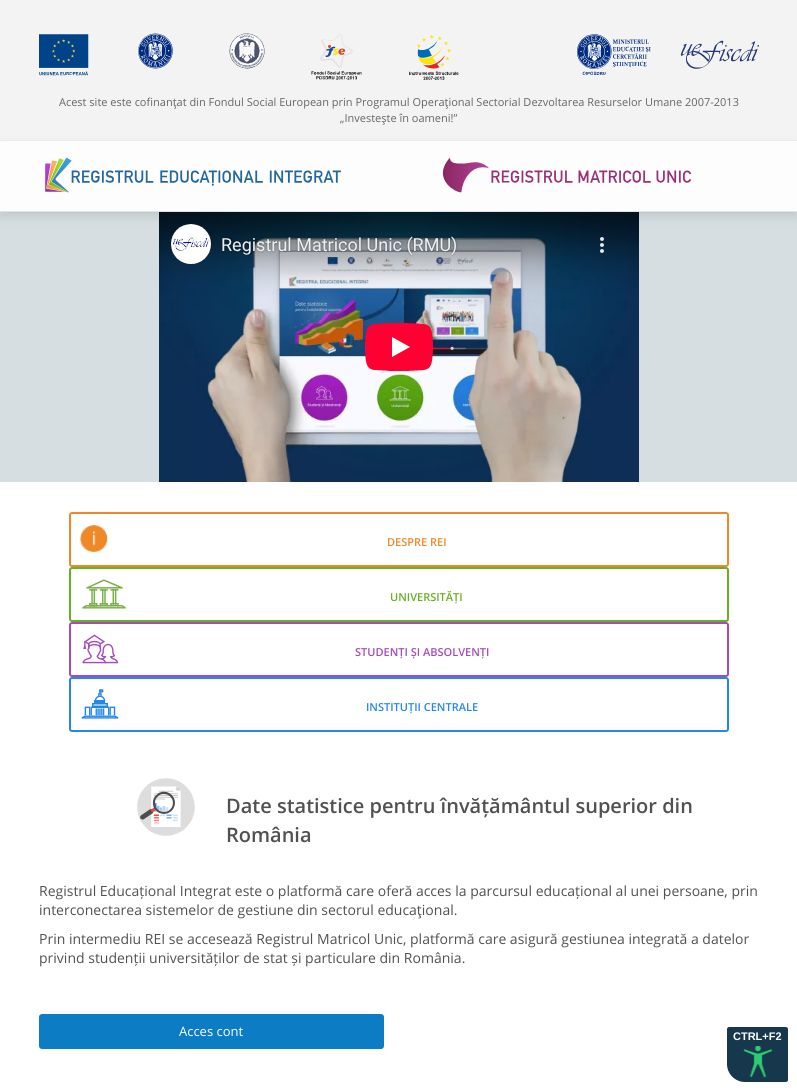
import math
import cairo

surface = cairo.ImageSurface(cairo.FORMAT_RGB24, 797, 1091)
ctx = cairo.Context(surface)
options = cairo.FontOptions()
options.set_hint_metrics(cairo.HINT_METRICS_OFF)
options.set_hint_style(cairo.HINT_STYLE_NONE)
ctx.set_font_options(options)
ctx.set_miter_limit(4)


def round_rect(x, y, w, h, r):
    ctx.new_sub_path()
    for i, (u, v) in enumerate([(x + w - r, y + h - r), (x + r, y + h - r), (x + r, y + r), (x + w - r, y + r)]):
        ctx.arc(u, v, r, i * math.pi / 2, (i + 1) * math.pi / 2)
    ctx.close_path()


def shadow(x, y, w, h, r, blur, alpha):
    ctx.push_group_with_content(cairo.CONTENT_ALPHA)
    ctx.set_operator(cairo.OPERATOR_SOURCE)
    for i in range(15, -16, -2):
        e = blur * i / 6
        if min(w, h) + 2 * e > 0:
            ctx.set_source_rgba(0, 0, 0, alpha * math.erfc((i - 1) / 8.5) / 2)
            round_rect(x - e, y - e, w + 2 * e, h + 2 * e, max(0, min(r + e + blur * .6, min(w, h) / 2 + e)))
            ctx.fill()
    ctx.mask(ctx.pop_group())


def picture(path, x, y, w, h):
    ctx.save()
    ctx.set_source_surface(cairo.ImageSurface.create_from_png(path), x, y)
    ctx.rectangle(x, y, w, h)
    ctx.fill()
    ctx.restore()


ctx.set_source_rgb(0.843, 0.871, 0.886)
ctx.paint()
ctx.set_source_rgb(0.953, 0.953, 0.953)
ctx.rectangle(0, 0, 797, 140)
ctx.fill()
ctx.set_source_rgb(0.933, 0.933, 0.933)
ctx.rectangle(0, 140, 797, 1)
ctx.fill()
picture("img1.png", 39, 33, 720, 47)
ctx.select_font_face("Open Sans")
ctx.set_font_size(11)
ctx.set_source_rgb(0.396, 0.396, 0.396)
ctx.move_to(59, 106)
ctx.show_text("Acest site este cofinanţat din Fondul Social European prin Programul Operaţional Sectorial Dezvoltarea Resurselor Umane 2007-2013")
ctx.move_to(340, 122)
ctx.show_text("„Investeşte în oameni!”")
ctx.set_source_rgb(0, 0, 0)
shadow(0, 146, 797, 71, 0, 5, 0.1)
ctx.set_source_rgb(0.992, 0.992, 0.996)
ctx.rectangle(0, 141, 797, 70)
ctx.fill()
ctx.set_source_rgb(0.871, 0.898, 0.925)
ctx.rectangle(0, 211, 797, 1)
ctx.fill()
picture("img2.png", 45, 157, 296, 36)
picture("img3.png", 442, 157, 250, 36)
picture("img4.png", 159, 212, 480, 270)
ctx.set_source_rgb(1, 1, 1)
ctx.rectangle(0, 482, 797, 609)
ctx.fill()
round_rect(70, 513, 658, 53, 2)
ctx.set_source_rgb(0.937, 0.533, 0.153)
ctx.stroke()
picture("img5.png", 79, 524, 29, 29)
ctx.select_font_face("Open Sans SemiBold")
ctx.move_to(387, 546)
ctx.show_text("DESPRE REI")
round_rect(70, 568, 658, 53, 2)
ctx.set_source_rgb(0.404, 0.69, 0.133)
ctx.stroke()
picture("img6.png", 82, 579, 44, 30)
ctx.move_to(390, 601)
ctx.show_text("UNIVERSITĂȚI")
round_rect(70, 623, 658, 53, 2)
ctx.set_source_rgb(0.647, 0.298, 0.722)
ctx.stroke()
picture("img7.png", 82, 634, 36, 30)
ctx.move_to(355, 656)
ctx.show_text("STUDENȚI ȘI ABSOLVENȚI")
round_rect(70, 678, 658, 53, 2)
ctx.set_source_rgb(0.141, 0.529, 0.918)
ctx.stroke()
picture("img8.png", 81, 689, 38, 30)
ctx.move_to(366, 711)
ctx.show_text("INSTITUȚII CENTRALE")
picture("img9.png", 137, 778, 58, 58)
ctx.set_font_size(20)
ctx.set_source_rgb(0.318, 0.318, 0.318)
ctx.move_to(226, 813)
ctx.show_text("Date statistice pentru învățământul superior din")
ctx.move_to(226, 842)
ctx.show_text("România")
ctx.select_font_face("Open Sans")
ctx.set_font_size(14)
ctx.move_to(39, 896)
ctx.show_text("Registrul Educațional Integrat este o platformă care oferă acces la parcursul educațional al unei persoane, prin")
ctx.move_to(39, 915)
ctx.show_text("interconectarea sistemelor de gestiune din sectorul educaţional.")
ctx.move_to(39, 944)
ctx.show_text("Prin intermediu REI se accesează Registrul Matricol Unic, platformă care asigură gestiunea integrată a datelor")
ctx.move_to(39, 963)
ctx.show_text("privind studenții universităților de stat și particulare din România.")
ctx.set_source_rgb(0.047, 0.486, 0.769)
round_rect(39, 1014, 345, 35, 3)
ctx.fill()
ctx.set_font_size(13)
ctx.set_source_rgb(1, 1, 1)
ctx.move_to(179, 1036)
ctx.show_text("Acces cont")
ctx.set_source_rgb(0.09, 0.22, 0.298)
ctx.new_path()
ctx.move_to(729, 1026)
ctx.line_to(786, 1026)
ctx.curve_to(787.5, 1026, 789, 1027.5, 789, 1029)
ctx.line_to(789, 1080)
ctx.curve_to(789, 1081.5, 787.5, 1083, 786, 1083)
ctx.line_to(745, 1083)
ctx.curve_to(734.5, 1083, 726, 1074.5, 726, 1064)
ctx.line_to(726, 1029)
ctx.curve_to(726, 1027.5, 727.5, 1026, 729, 1026)
ctx.close_path()
ctx.fill_preserve()
ctx.set_source_rgb(1, 1, 1)
ctx.stroke()
ctx.select_font_face("Liberation Sans", cairo.FONT_SLANT_NORMAL, cairo.FONT_WEIGHT_BOLD)
ctx.set_font_size(11)
ctx.move_to(733, 1040)
ctx.show_text("CTRL+F2")
picture("img10.png", 743, 1046, 30, 32)
surface.write_to_png("page.png")
